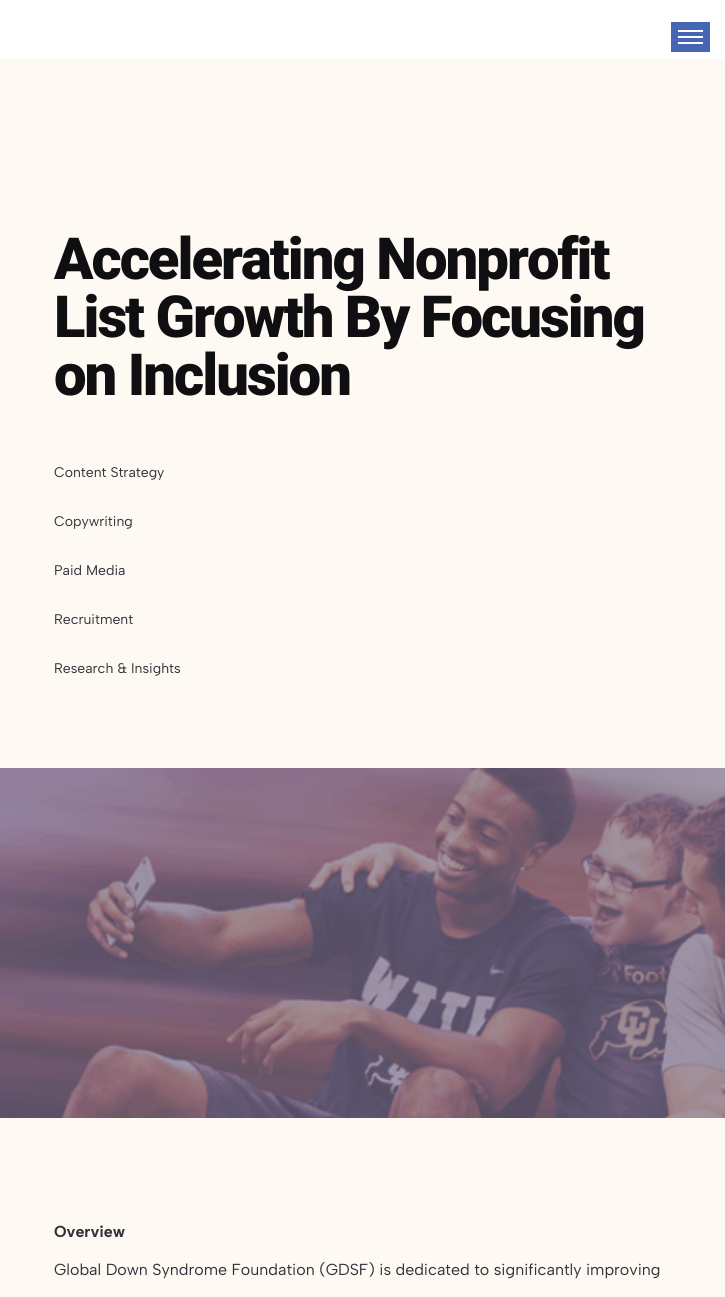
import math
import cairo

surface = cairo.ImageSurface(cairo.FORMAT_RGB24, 725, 1297)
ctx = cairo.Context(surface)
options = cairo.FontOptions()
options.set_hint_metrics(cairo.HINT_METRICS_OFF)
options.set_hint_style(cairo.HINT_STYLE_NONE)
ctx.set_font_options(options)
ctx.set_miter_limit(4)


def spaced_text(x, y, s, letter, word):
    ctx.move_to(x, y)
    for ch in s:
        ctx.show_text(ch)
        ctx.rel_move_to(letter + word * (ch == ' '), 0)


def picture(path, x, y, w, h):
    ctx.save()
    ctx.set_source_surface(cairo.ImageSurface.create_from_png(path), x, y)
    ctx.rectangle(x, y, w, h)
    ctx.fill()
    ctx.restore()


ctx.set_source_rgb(0.996, 0.973, 0.953)
ctx.paint()
ctx.set_source_rgb(1, 1, 1)
ctx.rectangle(0, 0, 725, 59)
ctx.fill()
ctx.set_source_rgb(0.275, 0.396, 0.706)
ctx.rectangle(671, 22, 39, 30)
ctx.fill()
ctx.set_source_rgb(1, 1, 1)
ctx.rectangle(678, 30, 25, 2)
ctx.fill()
ctx.rectangle(678, 36, 25, 2)
ctx.fill()
ctx.rectangle(678, 42, 25, 2)
ctx.fill()
ctx.select_font_face("Roboto Black")
ctx.set_font_size(58)
ctx.set_source_rgb(0.059, 0.059, 0.071)
spaced_text(54, 279, "Accelerating Nonprofit", -2, 0)
spaced_text(54, 337, "List Growth By Focusing", -2, 0)
spaced_text(54, 395, "on Inclusion", -2, 0)
ctx.select_font_face("Albert Sans")
ctx.set_font_size(14)
ctx.set_source_rgb(0.192, 0.192, 0.224)
ctx.move_to(54, 477)
ctx.show_text("Content Strategy")
ctx.move_to(54, 526)
ctx.show_text("Copywriting")
ctx.move_to(54, 575)
ctx.show_text("Paid Media")
ctx.move_to(54, 624)
ctx.show_text("Recruitment")
ctx.move_to(54, 673)
ctx.show_text("Research & Insights")
picture("img1.png", 0, 768, 725, 350)
ctx.select_font_face("Albert Sans", cairo.FONT_SLANT_NORMAL, cairo.FONT_WEIGHT_BOLD)
ctx.set_font_size(16)
ctx.move_to(54, 1237)
ctx.show_text("Overview")
ctx.select_font_face("Albert Sans")
ctx.move_to(54, 1275)
ctx.show_text("Global Down Syndrome Foundation (GDSF) is dedicated to significantly improving")
surface.write_to_png("page.png")
